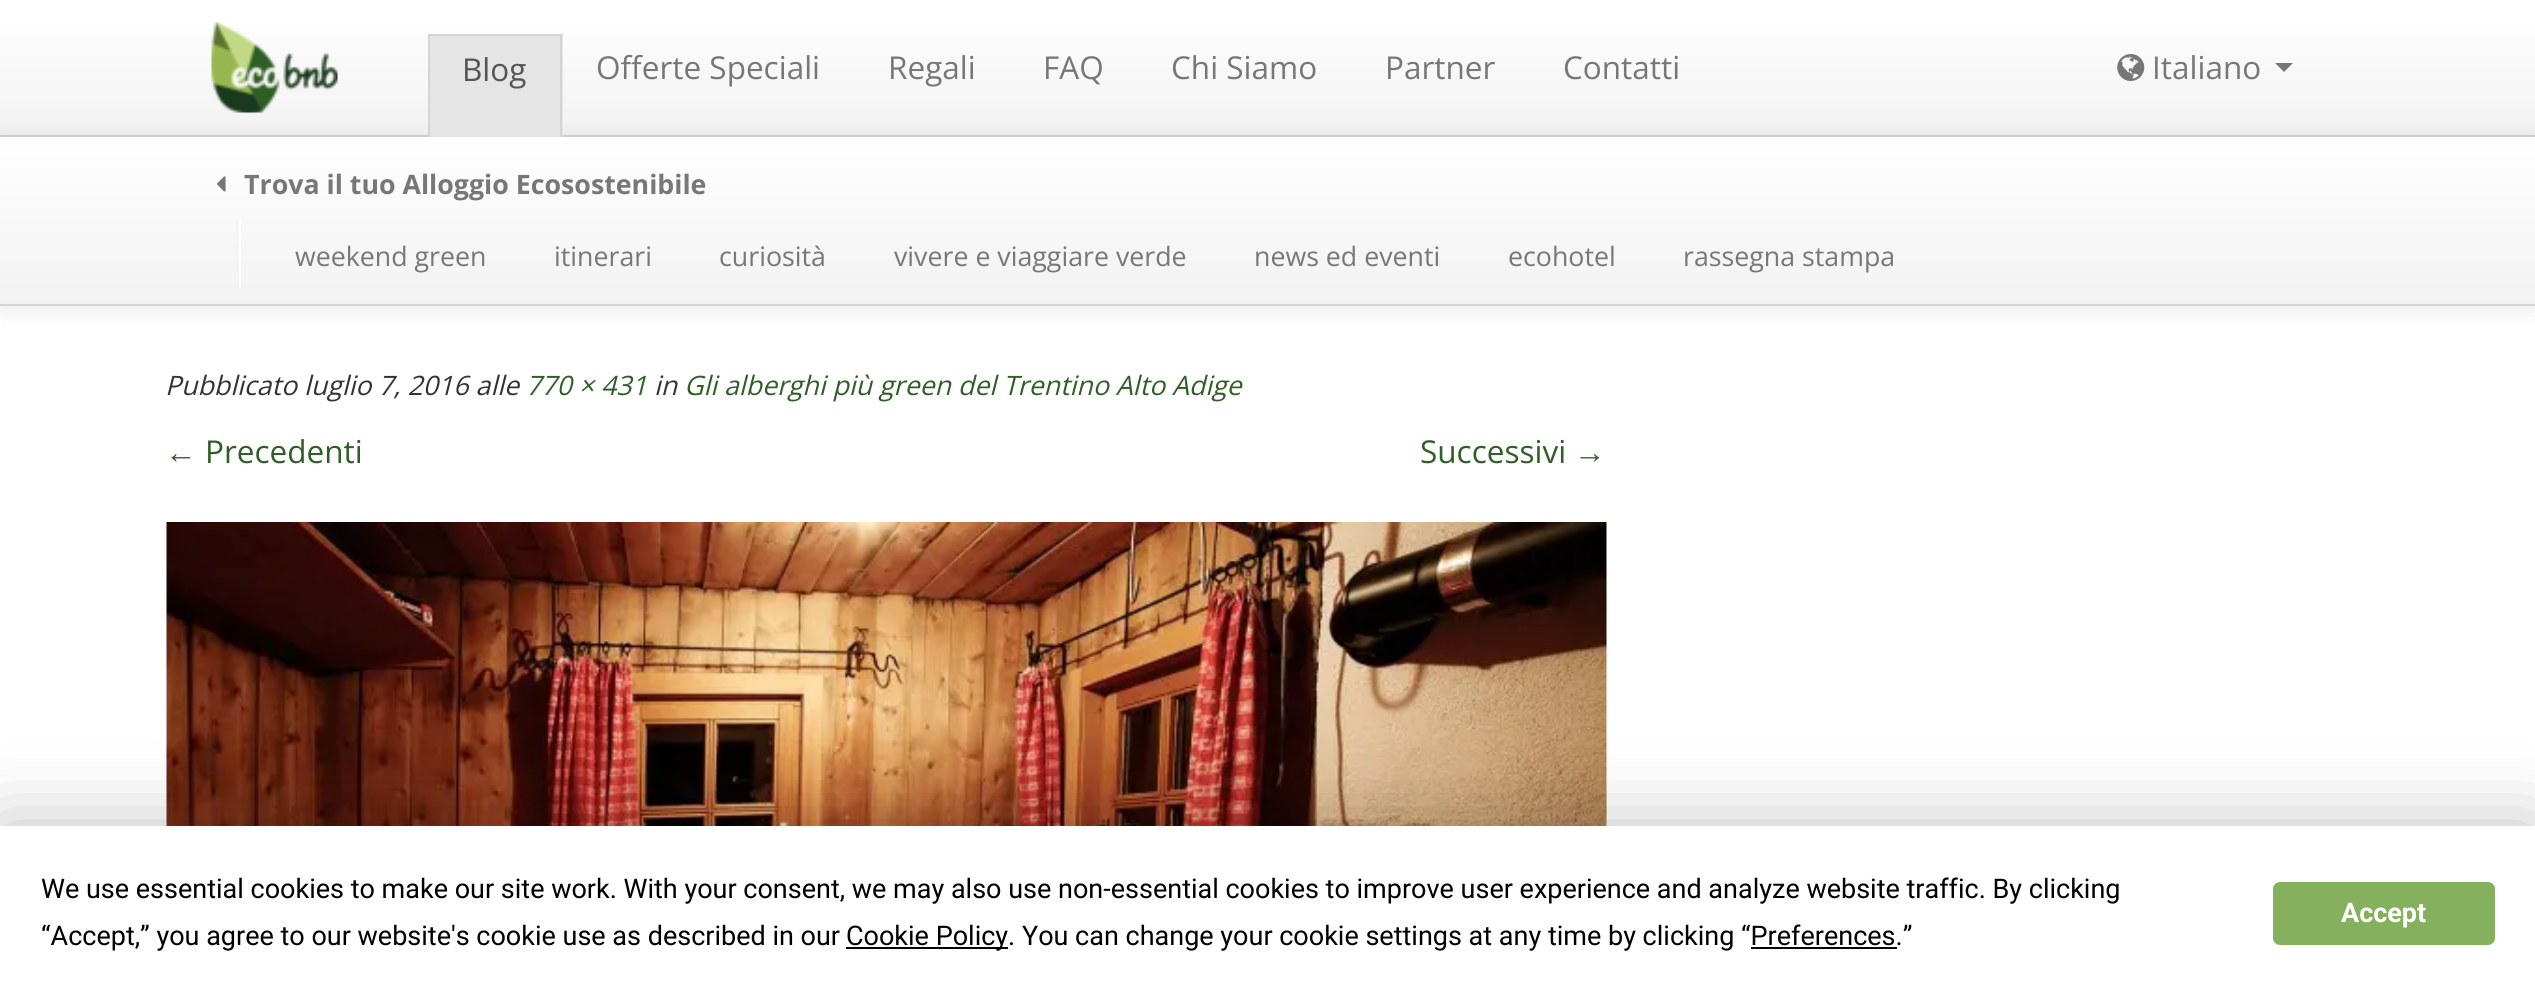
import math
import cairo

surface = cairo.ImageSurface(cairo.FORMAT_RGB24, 2535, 1001)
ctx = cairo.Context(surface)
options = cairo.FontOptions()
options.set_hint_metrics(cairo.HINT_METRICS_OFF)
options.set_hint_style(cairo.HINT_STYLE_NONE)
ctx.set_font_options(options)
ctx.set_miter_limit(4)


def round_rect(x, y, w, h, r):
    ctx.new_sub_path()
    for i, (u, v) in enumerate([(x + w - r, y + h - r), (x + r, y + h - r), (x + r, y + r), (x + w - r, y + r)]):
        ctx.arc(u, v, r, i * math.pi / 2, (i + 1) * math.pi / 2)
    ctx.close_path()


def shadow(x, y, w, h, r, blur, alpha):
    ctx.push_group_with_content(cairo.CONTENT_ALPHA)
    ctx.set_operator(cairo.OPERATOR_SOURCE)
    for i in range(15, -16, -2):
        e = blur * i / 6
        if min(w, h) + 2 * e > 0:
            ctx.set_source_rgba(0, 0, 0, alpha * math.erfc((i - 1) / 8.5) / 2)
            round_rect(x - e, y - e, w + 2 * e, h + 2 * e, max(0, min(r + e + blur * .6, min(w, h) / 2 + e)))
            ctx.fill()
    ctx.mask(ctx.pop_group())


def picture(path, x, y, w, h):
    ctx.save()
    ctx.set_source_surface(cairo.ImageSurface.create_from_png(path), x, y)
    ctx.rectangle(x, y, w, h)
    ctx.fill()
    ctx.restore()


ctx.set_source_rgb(1, 1, 1)
ctx.paint()
gradient = cairo.LinearGradient(1268, 0, 1268, 135)
gradient.add_color_stop_rgba(0, 1, 1, 1, 1)
gradient.add_color_stop_rgba(1, 0.949, 0.949, 0.949, 1)
ctx.set_source(gradient)
ctx.rectangle(0, 26, 2535, 109)
ctx.fill()
ctx.set_source_rgb(0.831, 0.831, 0.831)
ctx.rectangle(0, 135, 2535, 2)
ctx.fill()
ctx.set_source_rgb(0, 0, 0)
shadow(0, 140, 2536, 168, 0, 11, 0.1)
picture("img1.png", 211, 22, 127, 91)
ctx.set_source_rgb(0.898, 0.898, 0.898)
ctx.rectangle(430, 36, 133, 101)
ctx.fill()
ctx.set_source_rgb(0.831, 0.831, 0.831)
ctx.rectangle(428, 34, 135, 2)
ctx.fill()
ctx.rectangle(560, 34, 2, 103)
ctx.fill()
ctx.rectangle(428, 34, 2, 103)
ctx.fill()
ctx.select_font_face("Open Sans")
ctx.set_font_size(31.5)
ctx.set_source_rgb(0.333, 0.333, 0.333)
ctx.move_to(462, 81)
ctx.show_text("Blog")
ctx.set_source_rgb(0.467, 0.467, 0.467)
ctx.move_to(596, 79)
ctx.show_text("Offerte Speciali")
ctx.move_to(888, 79)
ctx.show_text("Regali")
ctx.move_to(1043, 79)
ctx.show_text("FAQ")
ctx.move_to(1171, 79)
ctx.show_text("Chi Siamo")
ctx.move_to(1385, 79)
ctx.show_text("Partner")
ctx.move_to(1563, 79)
ctx.show_text("Contatti")
picture("img2.png", 2117, 54, 28, 27)
ctx.move_to(2152, 79)
ctx.show_text("Italiano")
ctx.new_path()
ctx.move_to(2275, 63)
ctx.line_to(2293, 63)
ctx.line_to(2284, 72)
ctx.close_path()
ctx.fill()
gradient = cairo.LinearGradient(1268, 137, 1268, 304)
gradient.add_color_stop_rgba(0, 1, 1, 1, 1)
gradient.add_color_stop_rgba(1, 0.949, 0.949, 0.949, 1)
ctx.set_source(gradient)
ctx.rectangle(0, 137, 2535, 167)
ctx.fill()
ctx.set_source_rgb(0.831, 0.831, 0.831)
ctx.rectangle(0, 304, 2535, 2)
ctx.fill()
picture("img3.png", 217, 176, 9, 16)
ctx.select_font_face("Open Sans", cairo.FONT_SLANT_NORMAL, cairo.FONT_WEIGHT_BOLD)
ctx.set_font_size(26.75)
ctx.set_source_rgb(0.467, 0.467, 0.467)
ctx.move_to(244, 194)
ctx.show_text("Trova il tuo Alloggio Ecosostenibile")
ctx.set_source_rgb(1, 1, 1)
ctx.rectangle(239, 221, 2, 67)
ctx.fill()
ctx.set_source_rgb(0.949, 0.949, 0.949)
ctx.rectangle(236, 221, 2, 51)
ctx.fill()
ctx.select_font_face("Open Sans")
ctx.set_source_rgb(0.467, 0.467, 0.467)
ctx.move_to(295, 266)
ctx.show_text("weekend green")
ctx.move_to(554, 266)
ctx.show_text("itinerari")
ctx.move_to(719, 266)
ctx.show_text("curiosità")
ctx.move_to(894, 266)
ctx.show_text("vivere e viaggiare verde")
ctx.move_to(1254, 266)
ctx.show_text("news ed eventi")
ctx.move_to(1508, 266)
ctx.show_text("ecohotel")
ctx.move_to(1683, 266)
ctx.show_text("rassegna stampa")
ctx.select_font_face("Open Sans", cairo.FONT_SLANT_ITALIC)
ctx.set_source_rgb(0.2, 0.2, 0.2)
ctx.move_to(165, 395)
ctx.show_text("Pubblicato luglio 7, 2016 alle")
ctx.set_source_rgb(0.192, 0.369, 0.157)
ctx.move_to(526, 395)
ctx.show_text("770 × 431")
ctx.set_source_rgb(0.2, 0.2, 0.2)
ctx.move_to(654, 395)
ctx.show_text("in")
ctx.set_source_rgb(0.192, 0.369, 0.157)
ctx.move_to(684, 395)
ctx.show_text("Gli alberghi più green del Trentino Alto Adige")
ctx.select_font_face("Liberation Sans")
ctx.set_font_size(31.5)
ctx.move_to(165, 463)
ctx.show_text("←")
ctx.select_font_face("Open Sans")
ctx.move_to(205, 463)
ctx.show_text("Precedenti")
ctx.move_to(1420, 463)
ctx.show_text("Successivi")
ctx.select_font_face("Liberation Sans")
ctx.move_to(1574, 463)
ctx.show_text("→")
picture("img4.png", 166, 522, 1441, 304)
ctx.set_source_rgb(0, 0, 0)
shadow(0, 826, 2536, 175, 0, 39.5, 0.25)
ctx.set_source_rgb(1, 1, 1)
ctx.rectangle(0, 826, 2535, 175)
ctx.fill()
ctx.select_font_face("Roboto")
ctx.set_font_size(27)
ctx.set_source_rgb(0, 0, 0)
ctx.move_to(41, 898)
ctx.show_text("We use essential cookies to make our site work. With your consent, we may also use non-essential cookies to improve user experience and analyze website traffic. By clicking")
ctx.move_to(41, 945)
ctx.show_text("“Accept,” you agree to our website's cookie use as described in our")
ctx.rectangle(846, 947, 162, 2)
ctx.fill()
ctx.move_to(846, 945)
ctx.show_text("Cookie Policy. You can change your cookie settings at any time by clicking “Preferences.”")
ctx.rectangle(1751, 947, 146, 2)
ctx.fill()
ctx.set_source_rgb(0.522, 0.694, 0.369)
round_rect(2274, 883, 220, 61, 6)
ctx.fill_preserve()
ctx.stroke()
ctx.select_font_face("Roboto", cairo.FONT_SLANT_NORMAL, cairo.FONT_WEIGHT_BOLD)
ctx.set_source_rgb(1, 1, 1)
ctx.move_to(2341, 922)
ctx.show_text("Accept")
surface.write_to_png("page.png")
